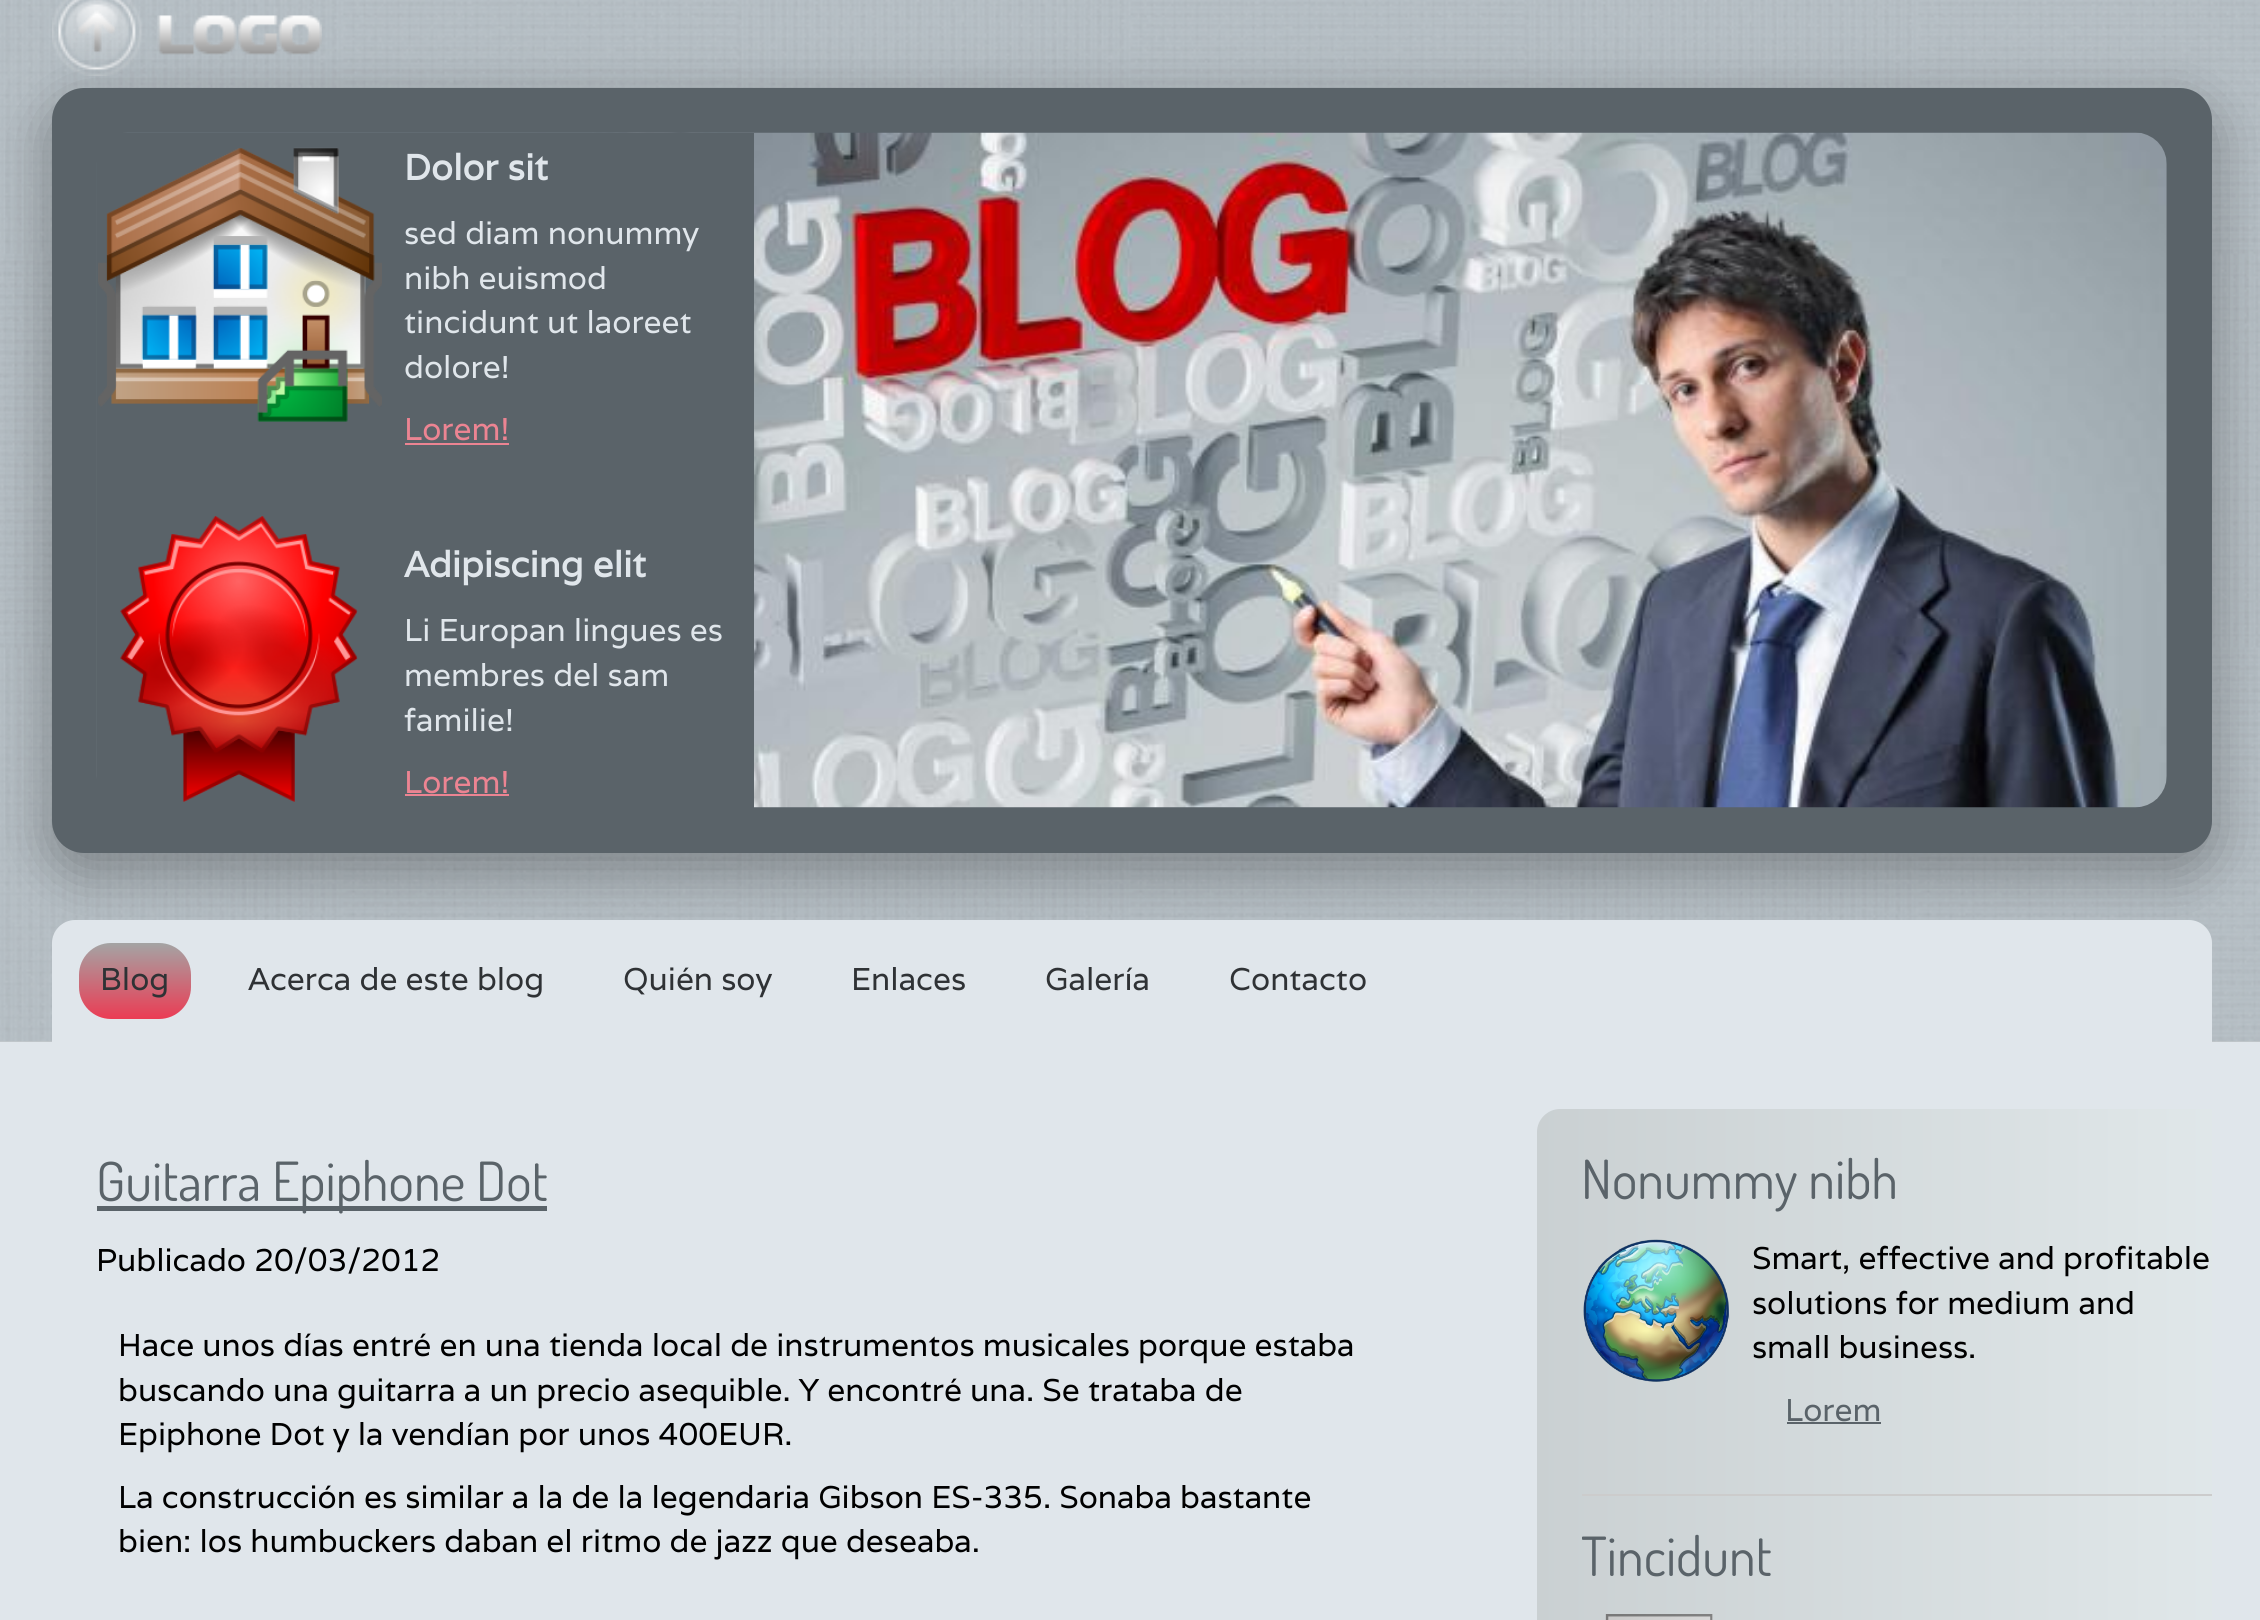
import math
import cairo

surface = cairo.ImageSurface(cairo.FORMAT_RGB24, 2260, 1620)
ctx = cairo.Context(surface)
options = cairo.FontOptions()
options.set_hint_metrics(cairo.HINT_METRICS_OFF)
options.set_hint_style(cairo.HINT_STYLE_NONE)
ctx.set_font_options(options)
ctx.set_miter_limit(4)


def round_rect(x, y, w, h, r):
    ctx.new_sub_path()
    for i, (u, v) in enumerate([(x + w - r, y + h - r), (x + r, y + h - r), (x + r, y + r), (x + w - r, y + r)]):
        ctx.arc(u, v, r, i * math.pi / 2, (i + 1) * math.pi / 2)
    ctx.close_path()


def shadow(x, y, w, h, r, blur, alpha):
    ctx.push_group_with_content(cairo.CONTENT_ALPHA)
    ctx.set_operator(cairo.OPERATOR_SOURCE)
    for i in range(15, -16, -2):
        e = blur * i / 6
        if min(w, h) + 2 * e > 0:
            ctx.set_source_rgba(0, 0, 0, alpha * math.erfc((i - 1) / 8.5) / 2)
            round_rect(x - e, y - e, w + 2 * e, h + 2 * e, max(0, min(r + e + blur * .6, min(w, h) / 2 + e)))
            ctx.fill()
    ctx.mask(ctx.pop_group())


def picture(path, x, y, w, h):
    ctx.save()
    ctx.set_source_surface(cairo.ImageSurface.create_from_png(path), x, y)
    ctx.rectangle(x, y, w, h)
    ctx.fill()
    ctx.restore()


ctx.set_source_rgb(1, 1, 1)
ctx.paint()
gradient = cairo.LinearGradient(1131, 0, 1131, 1620)
gradient.add_color_stop_rgba(0, 0.612, 0.612, 0.612, 1)
gradient.add_color_stop_rgba(1, 0.878, 0.902, 0.918, 1)
ctx.set_source(gradient)
ctx.rectangle(0, 1041, 2260, 1)
ctx.fill()
picture("img1.png", 0, 0, 2260, 1042)
picture("img2.png", 52, 0, 270, 76)
ctx.set_source_rgb(0, 0, 0)
shadow(47, 101, 2169, 774, 36, 28, 0.3)
ctx.set_source_rgb(0.353, 0.388, 0.412)
round_rect(52, 88, 2160, 765, 32)
ctx.fill()
picture("img3.png", 96, 132, 2071, 676)
ctx.rectangle(97, 133, 657, 675)
ctx.fill()
picture("img4.png", 98, 147, 284, 275)
ctx.select_font_face("Varela", cairo.FONT_SLANT_NORMAL, cairo.FONT_WEIGHT_BOLD)
ctx.set_font_size(36)
ctx.set_source_rgb(0.878, 0.902, 0.918)
ctx.move_to(404, 180)
ctx.show_text("Dolor sit")
ctx.select_font_face("Varela")
ctx.set_font_size(31.5)
ctx.move_to(404, 244)
ctx.show_text("sed diam nonummy")
ctx.move_to(404, 289)
ctx.show_text("nibh euismod")
ctx.move_to(404, 333)
ctx.show_text("tincidunt ut laoreet")
ctx.move_to(404, 378)
ctx.show_text("dolore!")
ctx.set_source_rgb(0.922, 0.518, 0.573)
ctx.move_to(404, 440)
ctx.show_text("Lorem!")
ctx.rectangle(405, 443, 104, 2)
ctx.fill()
picture("img5.png", 120, 516, 238, 286)
ctx.select_font_face("Varela", cairo.FONT_SLANT_NORMAL, cairo.FONT_WEIGHT_BOLD)
ctx.set_font_size(36)
ctx.set_source_rgb(0.878, 0.902, 0.918)
ctx.move_to(404, 577)
ctx.show_text("Adipiscing elit")
ctx.select_font_face("Varela")
ctx.set_font_size(31.5)
ctx.move_to(404, 641)
ctx.show_text("Li Europan lingues es")
ctx.move_to(404, 686)
ctx.show_text("membres del sam")
ctx.move_to(404, 731)
ctx.show_text("familie!")
ctx.set_source_rgb(0.922, 0.518, 0.573)
ctx.move_to(404, 793)
ctx.show_text("Lorem!")
ctx.rectangle(405, 794, 104, 2)
ctx.fill()
ctx.set_source_rgb(0.878, 0.902, 0.918)
ctx.new_path()
ctx.move_to(75, 920)
ctx.line_to(2189, 920)
ctx.curve_to(2201.5, 920, 2212, 930.5, 2212, 943)
ctx.line_to(2212, 1042)
ctx.line_to(52, 1042)
ctx.line_to(52, 943)
ctx.curve_to(52, 930.5, 62.5, 920, 75, 920)
ctx.close_path()
ctx.fill()
gradient = cairo.LinearGradient(135, 943, 135, 1019)
gradient.add_color_stop_rgba(0, 0.643, 0.643, 0.643, 1)
gradient.add_color_stop_rgba(1, 0.922, 0.235, 0.329, 1)
ctx.set_source(gradient)
round_rect(79, 943, 112, 76, 32)
ctx.fill()
ctx.set_source_rgb(0.184, 0.196, 0.208)
ctx.move_to(100, 990)
ctx.show_text("Blog")
ctx.move_to(248, 990)
ctx.show_text("Acerca de este blog")
ctx.move_to(623, 990)
ctx.show_text("Quién soy")
ctx.move_to(851, 990)
ctx.show_text("Enlaces")
ctx.move_to(1045, 990)
ctx.show_text("Galería")
ctx.move_to(1229, 990)
ctx.show_text("Contacto")
ctx.set_source_rgb(0.878, 0.902, 0.918)
ctx.rectangle(0, 1042, 2260, 578)
ctx.fill()
ctx.set_source_rgb(0.353, 0.388, 0.412)
ctx.rectangle(97, 1206, 450, 5)
ctx.fill()
ctx.select_font_face("Dosis")
ctx.set_font_size(54)
ctx.move_to(96, 1201)
ctx.show_text("Guitarra Epiphone Dot")
ctx.select_font_face("Varela")
ctx.set_font_size(31.5)
ctx.set_source_rgb(0, 0, 0)
ctx.move_to(96, 1271)
ctx.show_text("Publicado 20/03/2012")
ctx.move_to(118, 1356)
ctx.show_text("Hace unos días entré en una tienda local de instrumentos musicales porque estaba")
ctx.move_to(118, 1401)
ctx.show_text("buscando una guitarra a un precio asequible. Y encontré una. Se trataba de")
ctx.move_to(118, 1445)
ctx.show_text("Epiphone Dot y la vendían por unos 400EUR.")
ctx.move_to(118, 1508)
ctx.show_text("La construcción es similar a la de la legendaria Gibson ES-335. Sonaba bastante")
ctx.move_to(118, 1552)
ctx.show_text("bien: los humbuckers daban el ritmo de jazz que deseaba.")
gradient = cairo.LinearGradient(1537, 1503, 2212, 1503)
gradient.add_color_stop_rgba(0, 0.792, 0.816, 0.824, 1)
gradient.add_color_stop_rgba(1, 0.878, 0.906, 0.914, 1)
ctx.set_source(gradient)
ctx.new_path()
ctx.move_to(1560, 1109)
ctx.line_to(2212, 1109)
ctx.line_to(2212, 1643)
ctx.line_to(1560, 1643)
ctx.curve_to(1547.5, 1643, 1537, 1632.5, 1537, 1620)
ctx.line_to(1537, 1132)
ctx.curve_to(1537, 1119.5, 1547.5, 1109, 1560, 1109)
ctx.close_path()
ctx.fill()
ctx.select_font_face("Dosis")
ctx.set_font_size(54)
ctx.set_source_rgb(0.353, 0.388, 0.412)
ctx.move_to(1581, 1199)
ctx.show_text("Nonummy nibh")
picture("img6.png", 1583, 1239, 147, 143)
ctx.select_font_face("Varela")
ctx.set_font_size(31.5)
ctx.set_source_rgb(0, 0, 0)
ctx.move_to(1752, 1269)
ctx.show_text("Smart, effective and profitable")
ctx.move_to(1752, 1314)
ctx.show_text("solutions for medium and")
ctx.move_to(1752, 1358)
ctx.show_text("small business.")
ctx.set_source_rgb(0.353, 0.388, 0.412)
ctx.move_to(1785, 1421)
ctx.show_text("Lorem")
ctx.rectangle(1787, 1422, 94, 2)
ctx.fill()
ctx.set_source_rgb(0.8, 0.8, 0.8)
ctx.rectangle(1582, 1494, 630, 2)
ctx.fill()
ctx.save()
ctx.rectangle(1582, 1478, 630, 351)
ctx.clip()
ctx.select_font_face("Dosis")
ctx.set_font_size(54)
ctx.set_source_rgb(0.353, 0.388, 0.412)
ctx.move_to(1581, 1576)
ctx.show_text("Tincidunt")
ctx.restore()
picture("img7.png", 1605, 1614, 108, 6)
surface.write_to_png("page.png")
